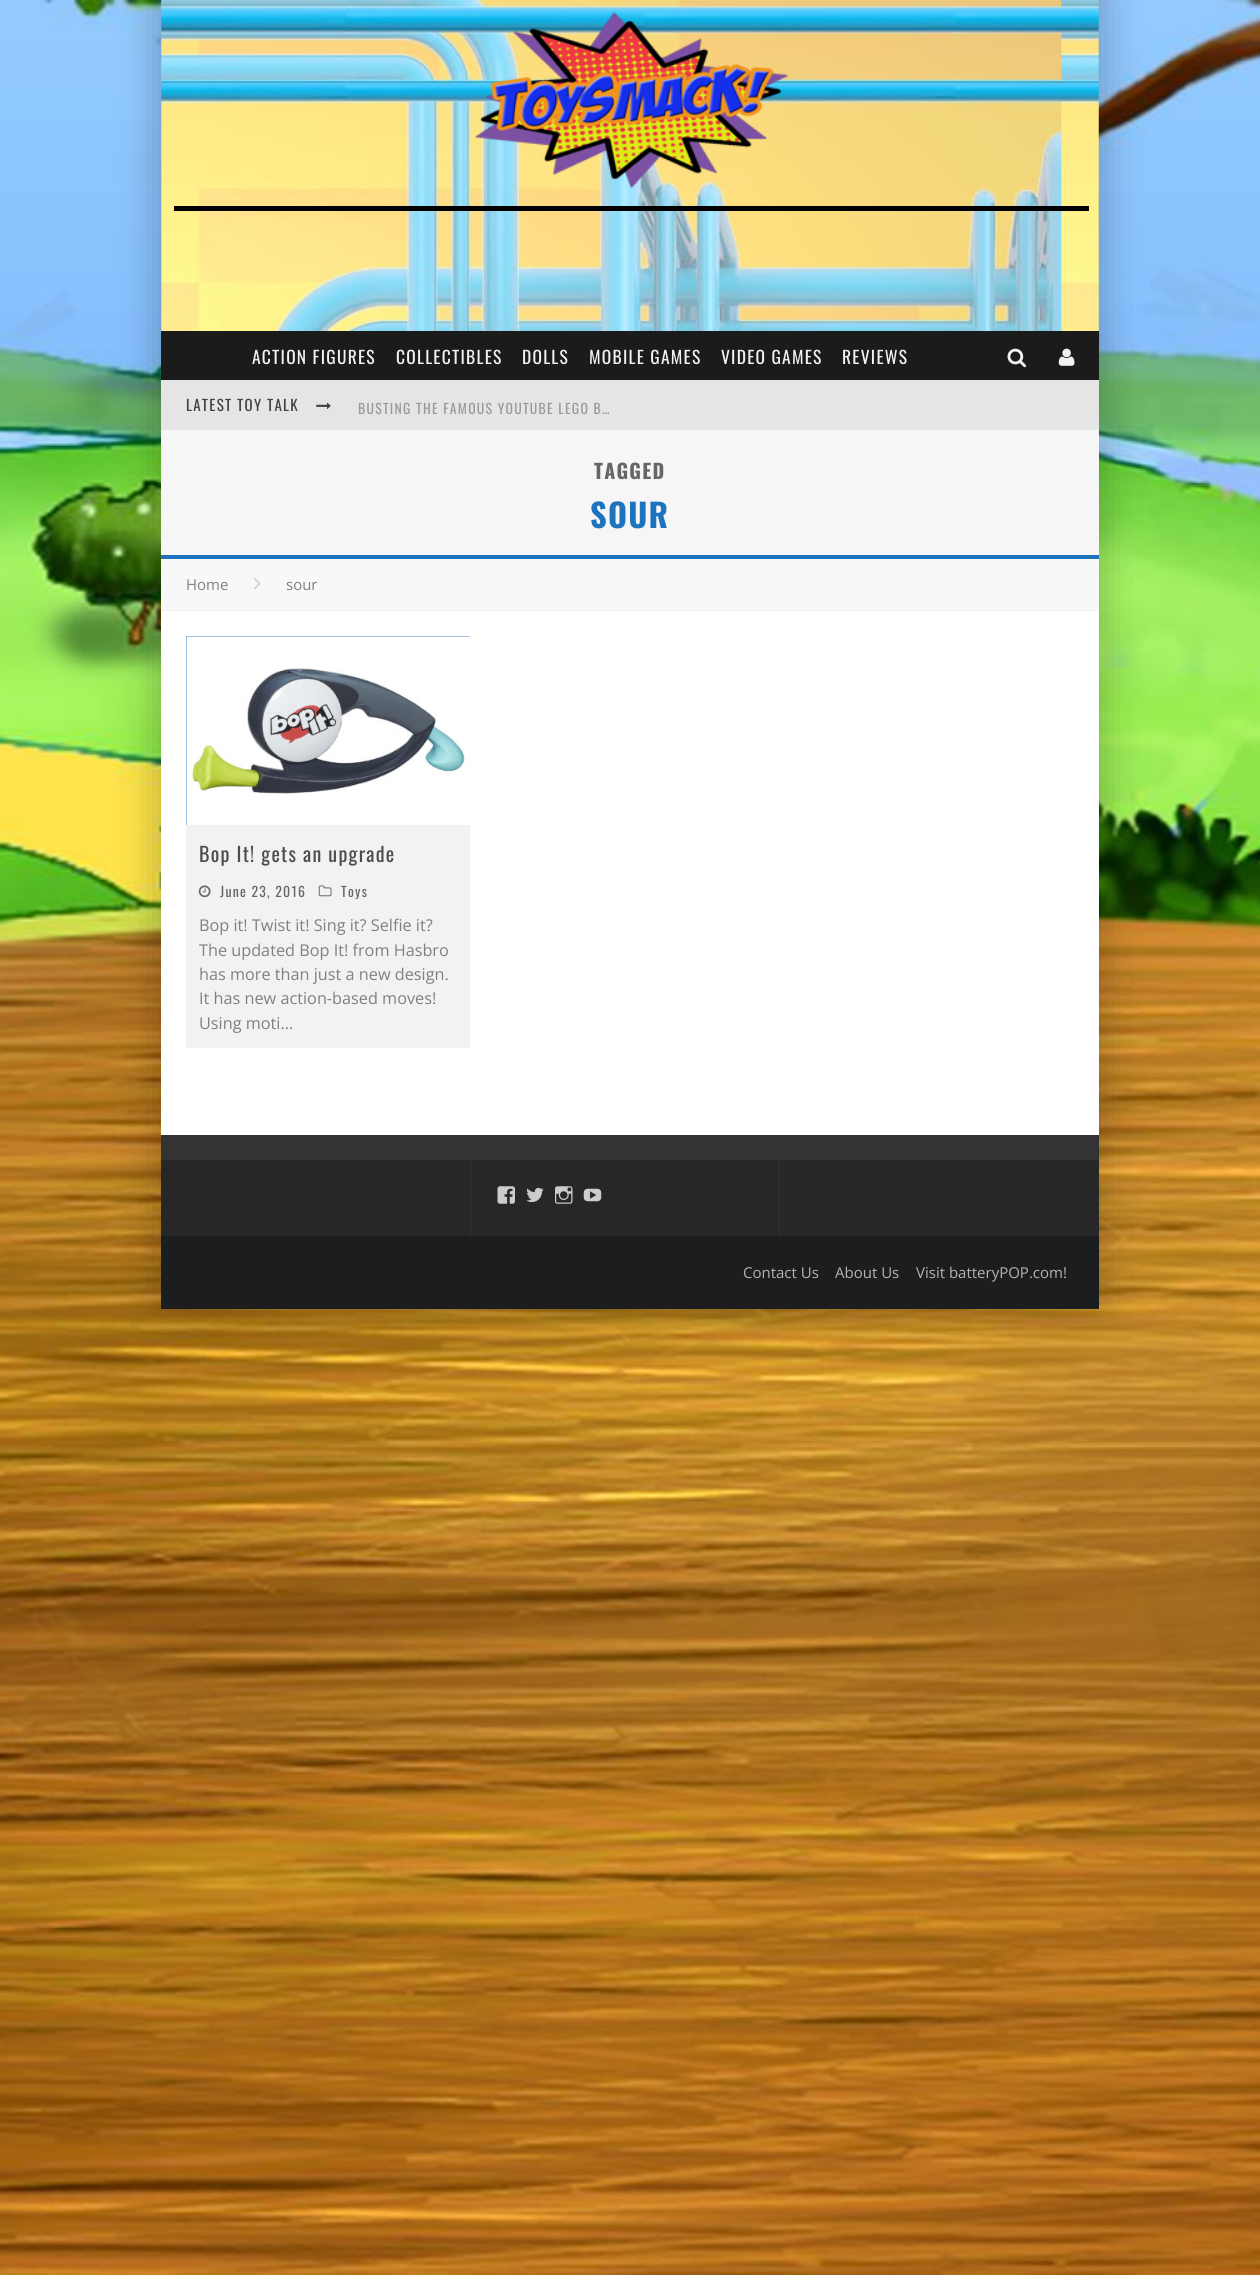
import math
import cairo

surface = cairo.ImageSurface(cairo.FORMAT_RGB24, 1260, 2275)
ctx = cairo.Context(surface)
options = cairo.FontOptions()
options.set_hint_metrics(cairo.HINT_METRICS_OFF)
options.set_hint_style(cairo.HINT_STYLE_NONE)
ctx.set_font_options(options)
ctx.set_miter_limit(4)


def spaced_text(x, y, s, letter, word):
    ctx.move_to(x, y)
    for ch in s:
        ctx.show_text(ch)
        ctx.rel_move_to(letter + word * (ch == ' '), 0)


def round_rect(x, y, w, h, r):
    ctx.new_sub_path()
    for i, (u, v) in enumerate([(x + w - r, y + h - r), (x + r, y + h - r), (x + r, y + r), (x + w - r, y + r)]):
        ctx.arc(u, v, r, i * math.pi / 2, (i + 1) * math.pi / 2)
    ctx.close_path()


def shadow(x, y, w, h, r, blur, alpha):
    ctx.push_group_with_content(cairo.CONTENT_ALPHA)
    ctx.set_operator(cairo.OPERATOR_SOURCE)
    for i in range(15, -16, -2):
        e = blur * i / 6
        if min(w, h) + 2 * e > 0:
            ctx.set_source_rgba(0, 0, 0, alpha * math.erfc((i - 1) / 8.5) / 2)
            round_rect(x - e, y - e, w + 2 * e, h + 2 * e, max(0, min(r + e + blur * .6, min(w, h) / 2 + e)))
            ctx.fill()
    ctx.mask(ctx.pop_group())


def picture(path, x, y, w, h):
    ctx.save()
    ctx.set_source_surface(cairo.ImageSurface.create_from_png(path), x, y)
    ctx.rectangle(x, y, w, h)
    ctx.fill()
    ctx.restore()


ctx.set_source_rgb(1, 1, 1)
ctx.paint()
picture("img1.png", 0, 0, 1260, 2275)
ctx.set_source_rgb(0, 0, 0)
shadow(149, 0, 937, 1309, 0, 19, 0.15)
shadow(174, 0, 937, 1309, 0, 19, 0.15)
picture("img2.png", 161, 0, 938, 380)
picture("img3.png", 475, 12, 313, 176)
ctx.set_source_rgb(0, 0, 0)
ctx.rectangle(174, 206, 915, 5)
ctx.fill()
ctx.set_source_rgba(0.106, 0.106, 0.106, 0.95)
ctx.rectangle(161, 331, 938, 49)
ctx.fill()
ctx.rectangle(161, 331, 938, 49)
ctx.fill()
ctx.select_font_face("Oswald")
ctx.set_font_size(17.5)
ctx.set_source_rgb(0.949, 0.949, 0.949)
spaced_text(252, 364, "ACTION FIGURES", 1.25, 0)
spaced_text(396, 364, "COLLECTIBLES", 1.25, 0)
spaced_text(522, 364, "DOLLS", 1.25, 0)
spaced_text(589, 364, "MOBILE GAMES", 1.25, 0)
spaced_text(721, 364, "VIDEO GAMES", 1.25, 0)
spaced_text(842, 364, "REVIEWS", 1.25, 0)
picture("img4.png", 1007, 348, 20, 20)
picture("img5.png", 1058, 348, 17, 18)
ctx.set_source_rgb(0.898, 0.898, 0.898)
ctx.rectangle(161, 380, 938, 50)
ctx.fill()
ctx.set_font_size(15)
ctx.set_source_rgb(0.259, 0.259, 0.259)
spaced_text(186, 411, "LATEST TOY TALK", 1.25, 0)
picture("img6.png", 316, 402, 15, 7)
ctx.set_font_size(13.75)
ctx.set_source_rgb(0.6, 0.6, 0.6)
spaced_text(358, 414, "BUSTING THE FAMOUS YOUTUBE LEGO B…", 1.25, 0)
ctx.set_source_rgb(1, 1, 1)
ctx.rectangle(161, 611, 938, 524)
ctx.fill()
ctx.set_source_rgb(0.961, 0.961, 0.961)
ctx.rectangle(161, 430, 938, 125)
ctx.fill()
ctx.set_source_rgb(0.118, 0.451, 0.745)
ctx.rectangle(161, 555, 938, 4)
ctx.fill()
ctx.select_font_face("Oswald", cairo.FONT_SLANT_NORMAL, cairo.FONT_WEIGHT_BOLD)
ctx.set_font_size(20)
ctx.set_source_rgb(0.4, 0.4, 0.4)
spaced_text(594, 479, "TAGGED", 1.25, 0)
ctx.set_font_size(32.5)
ctx.set_source_rgb(0.118, 0.451, 0.745)
spaced_text(590, 528, "SOUR", 1.25, 0)
ctx.set_source_rgb(0.969, 0.969, 0.969)
ctx.rectangle(161, 559, 938, 51)
ctx.fill()
ctx.set_source_rgb(0.953, 0.953, 0.953)
ctx.rectangle(161, 610, 938, 1)
ctx.fill()
ctx.select_font_face("Open Sans")
ctx.set_font_size(15)
ctx.set_source_rgb(0.502, 0.502, 0.502)
ctx.move_to(186, 590)
ctx.show_text("Home")
picture("img7.png", 254, 578, 7, 11)
ctx.move_to(286, 590)
ctx.show_text("sour")
ctx.set_source_rgb(0.949, 0.949, 0.949)
ctx.rectangle(186, 825, 284, 223)
ctx.fill()
ctx.set_source_rgb(0.118, 0.451, 0.745)
ctx.rectangle(186, 636, 284, 189)
ctx.fill()
picture("img8.png", 186, 636, 284, 189)
ctx.select_font_face("Oswald")
ctx.set_font_size(20)
ctx.set_source_rgb(0.302, 0.302, 0.302)
spaced_text(199, 862, "Bop It! gets an upgrade", 1.25, 0)
picture("img9.png", 198, 885, 13, 13)
ctx.set_font_size(13.75)
ctx.set_source_rgb(0.4, 0.4, 0.4)
spaced_text(220, 897, "June 23, 2016", 1.25, 0)
picture("img10.png", 318, 885, 14, 12)
spaced_text(341, 897, "Toys", 1.25, 0)
ctx.select_font_face("Open Sans")
ctx.set_font_size(16.25)
ctx.set_source_rgb(0.502, 0.502, 0.502)
ctx.move_to(199, 931)
ctx.show_text("Bop it! Twist it! Sing it? Selfie it?")
ctx.move_to(199, 956)
ctx.show_text("The updated Bop It! from Hasbro")
ctx.move_to(199, 980)
ctx.show_text("has more than just a new design.")
ctx.move_to(199, 1004)
ctx.show_text("It has new action-based moves!")
ctx.move_to(199, 1029)
ctx.show_text("Using moti...")
ctx.set_source_rgb(0.153, 0.153, 0.153)
ctx.rectangle(161, 1160, 938, 76)
ctx.fill()
ctx.set_source_rgb(0.2, 0.2, 0.2)
ctx.rectangle(161, 1135, 938, 25)
ctx.fill()
ctx.rectangle(470, 1160, 1, 76)
ctx.fill()
ctx.rectangle(779, 1160, 1, 76)
ctx.fill()
picture("img11.png", 497, 1186, 18, 18)
picture("img12.png", 526, 1187, 18, 16)
picture("img13.png", 555, 1186, 18, 18)
picture("img14.png", 583, 1188, 19, 14)
ctx.set_source_rgb(0.11, 0.114, 0.118)
ctx.rectangle(161, 1236, 938, 73)
ctx.fill()
ctx.set_font_size(15)
ctx.set_source_rgb(0.702, 0.702, 0.702)
ctx.move_to(743, 1278)
ctx.show_text("Contact Us")
ctx.move_to(835, 1278)
ctx.show_text("About Us")
ctx.move_to(916, 1278)
ctx.show_text("Visit batteryPOP.com!")
surface.write_to_png("page.png")
